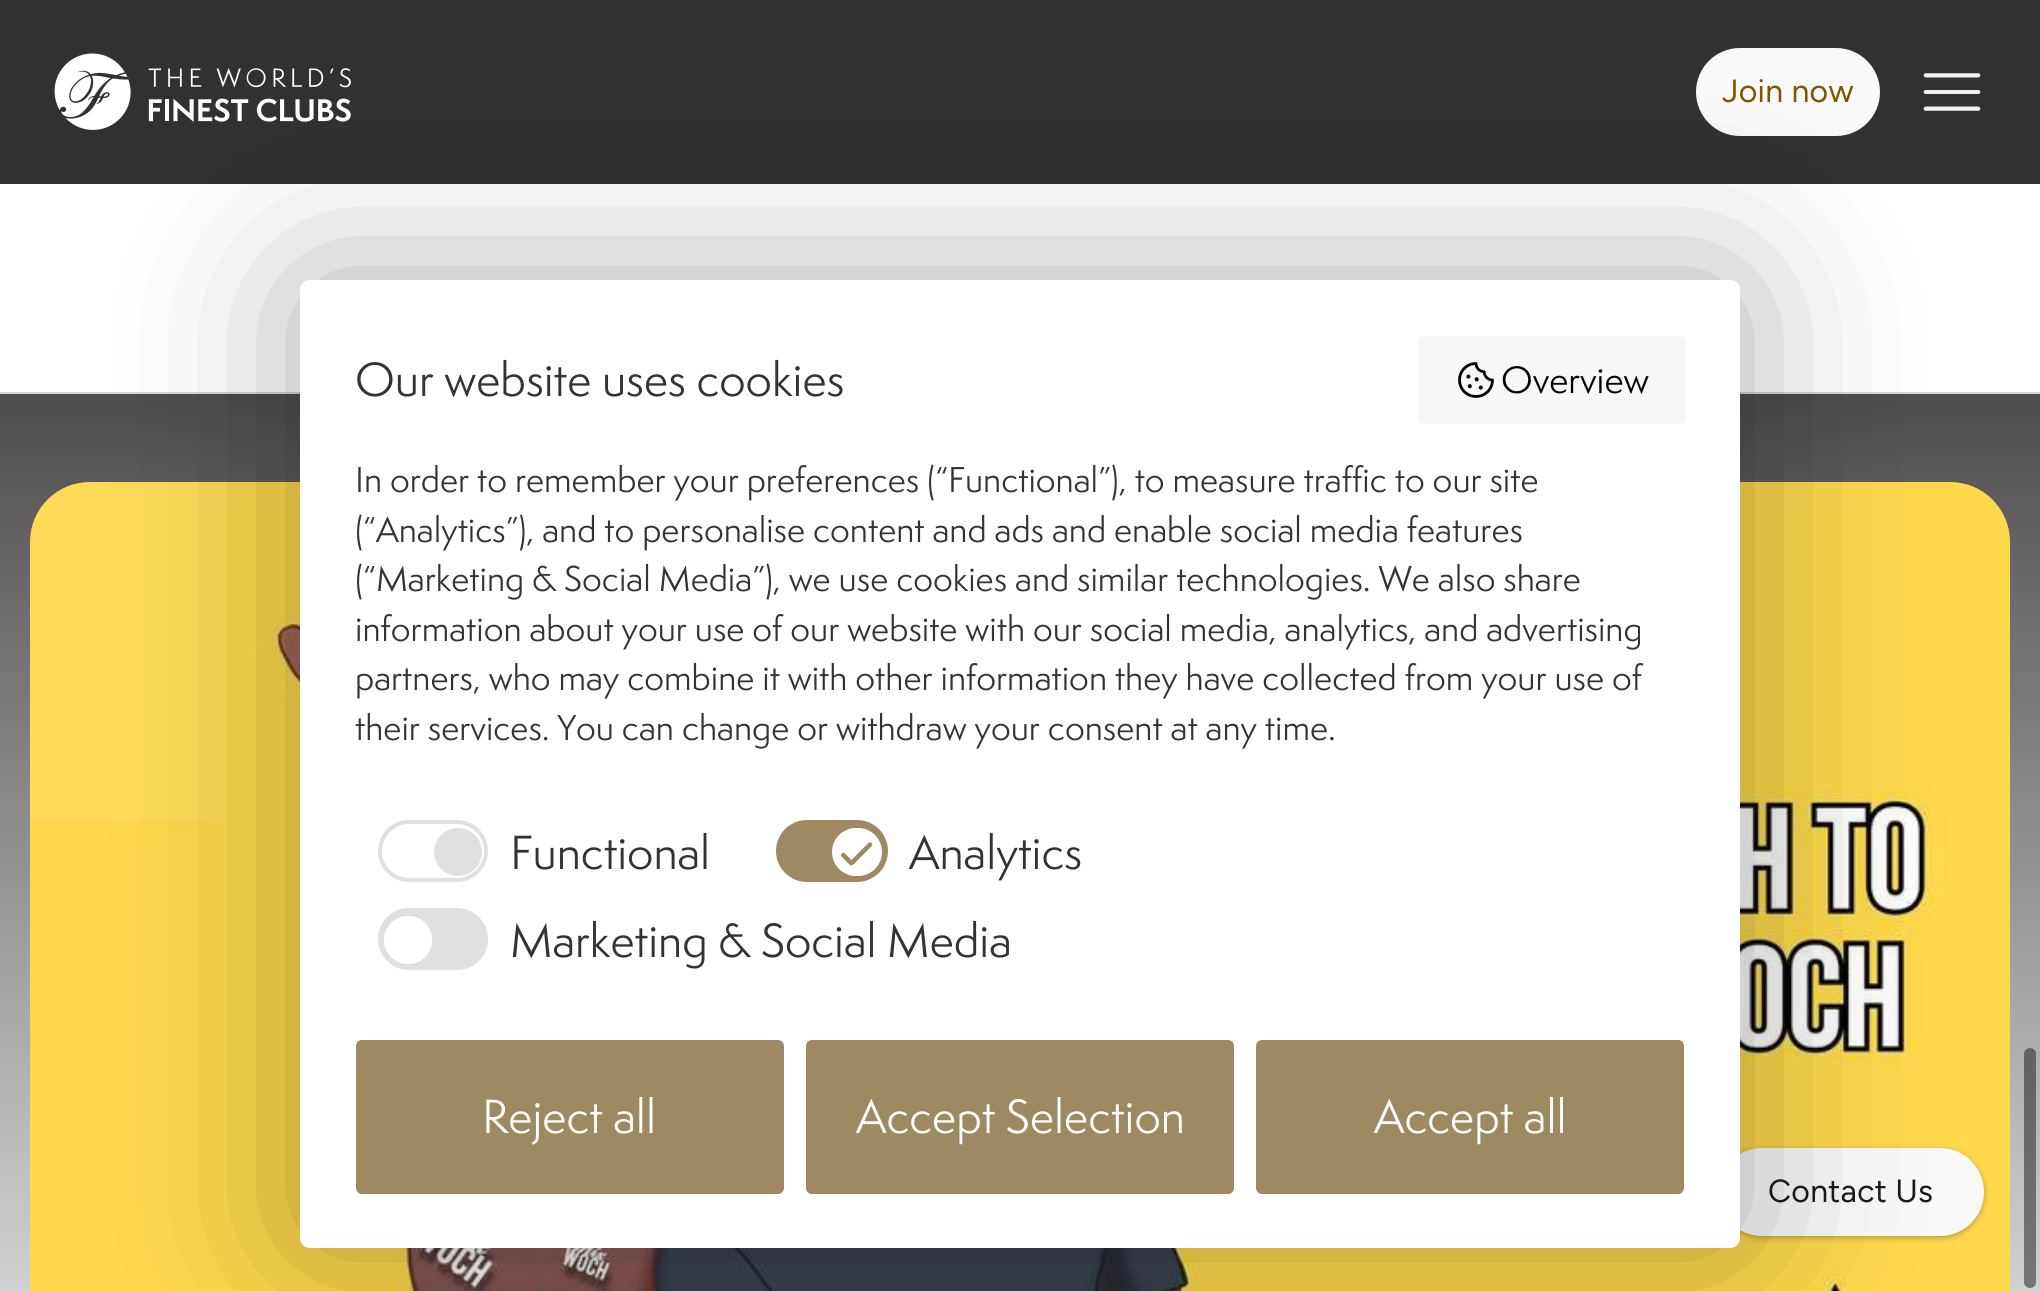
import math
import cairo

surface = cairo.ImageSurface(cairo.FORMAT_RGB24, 2040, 1291)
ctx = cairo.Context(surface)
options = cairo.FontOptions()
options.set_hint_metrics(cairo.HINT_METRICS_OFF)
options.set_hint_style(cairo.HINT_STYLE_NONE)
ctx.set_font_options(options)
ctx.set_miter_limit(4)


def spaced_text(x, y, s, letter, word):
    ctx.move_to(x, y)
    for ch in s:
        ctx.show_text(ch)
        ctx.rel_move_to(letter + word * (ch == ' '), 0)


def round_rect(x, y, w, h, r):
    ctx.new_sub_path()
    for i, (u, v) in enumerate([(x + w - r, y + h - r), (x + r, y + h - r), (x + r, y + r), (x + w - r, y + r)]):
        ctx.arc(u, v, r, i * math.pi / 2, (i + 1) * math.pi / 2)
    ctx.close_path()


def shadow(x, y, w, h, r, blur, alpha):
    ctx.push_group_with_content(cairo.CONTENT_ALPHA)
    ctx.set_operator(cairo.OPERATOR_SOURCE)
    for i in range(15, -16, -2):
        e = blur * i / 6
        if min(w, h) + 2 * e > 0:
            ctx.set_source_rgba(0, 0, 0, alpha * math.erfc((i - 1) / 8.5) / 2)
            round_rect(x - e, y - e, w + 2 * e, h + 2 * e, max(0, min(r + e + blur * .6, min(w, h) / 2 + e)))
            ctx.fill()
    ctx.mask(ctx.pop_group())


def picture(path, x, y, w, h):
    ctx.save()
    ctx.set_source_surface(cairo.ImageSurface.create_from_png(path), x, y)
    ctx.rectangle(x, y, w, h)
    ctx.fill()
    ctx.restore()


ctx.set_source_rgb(1, 1, 1)
ctx.paint()
ctx.set_source_rgb(0.196, 0.192, 0.188)
ctx.rectangle(0, 0, 2040, 184)
ctx.fill()
picture("img3.png", 54, 53, 297, 77)
ctx.set_source_rgb(0.98, 0.976, 0.973)
round_rect(1696, 48, 184, 88, 44)
ctx.fill()
picture("img4.png", 1923, 73, 58, 38)
ctx.set_source_rgb(0.847, 0.847, 0.847)
ctx.rectangle(0, 392, 2040, 2)
ctx.fill()
gradient = cairo.LinearGradient(1020, 394, 1020, 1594)
gradient.add_color_stop_rgba(0, 0.306, 0.298, 0.306, 1)
gradient.add_color_stop_rgba(1, 1, 1, 1, 1)
ctx.set_source(gradient)
ctx.rectangle(0, 394, 2040, 897)
ctx.fill()
picture("img5.png", 30, 482, 1980, 809)
ctx.set_source_rgb(0.153, 0.098, 0)
shadow(1718, 1150, 266, 88, 44, 3, 0.3)
ctx.set_source_rgb(0.98, 0.976, 0.973)
round_rect(1718, 1148, 266, 88, 44)
ctx.fill()
ctx.set_source_rgb(0, 0, 0)
shadow(300, 280, 1440, 968, 10, 88, 0.33)
ctx.set_source_rgb(1, 1, 1)
round_rect(300, 280, 1440, 968, 10)
ctx.fill()
ctx.select_font_face("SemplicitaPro")
ctx.set_font_size(44)
ctx.set_source_rgb(0.2, 0.2, 0.2)
ctx.move_to(355, 396)
ctx.show_text("Our website uses cookies")
ctx.set_source_rgb(0.965, 0.965, 0.965)
round_rect(1418, 336, 268, 88, 6)
ctx.fill()
picture("img1.png", 1458, 362, 36, 36)
ctx.set_font_size(35)
ctx.set_source_rgb(0, 0, 0)
ctx.move_to(1501, 393)
ctx.show_text("Overview")
ctx.set_font_size(33)
ctx.set_source_rgb(0.2, 0.2, 0.2)
ctx.move_to(355, 492)
ctx.show_text("In order to remember your preferences (“Functional”), to measure traffic to our site")
ctx.move_to(355, 542)
ctx.show_text("(“Analytics”), and to personalise content and ads and enable social media features")
ctx.move_to(355, 591)
ctx.show_text("(“Marketing & Social Media”), we use cookies and similar technologies. We also share")
ctx.move_to(355, 641)
ctx.show_text("information about your use of our website with our social media, analytics, and advertising")
ctx.move_to(355, 690)
ctx.show_text("partners, who may combine it with other information they have collected from your use of")
ctx.move_to(355, 740)
ctx.show_text("their services. You can change or withdraw your consent at any time.")
round_rect(380, 822, 106, 58, 29)
ctx.set_source_rgb(0.878, 0.878, 0.878)
ctx.set_line_width(4)
ctx.stroke()
ctx.arc(458, 852, 24, 0, 2 * math.pi)
ctx.fill()
ctx.set_font_size(44)
ctx.set_source_rgb(0.2, 0.2, 0.2)
ctx.move_to(510, 869)
ctx.show_text("Functional")
ctx.set_source_rgb(0.62, 0.537, 0.384)
round_rect(778, 822, 108, 58, 29)
ctx.fill_preserve()
ctx.stroke()
ctx.set_source_rgb(1, 1, 1)
round_rect(832, 828, 50, 48, 24)
ctx.fill()
picture("img2.png", 841, 842, 32, 24)
ctx.set_source_rgb(0.2, 0.2, 0.2)
ctx.move_to(909, 869)
ctx.show_text("Analytics")
ctx.set_source_rgb(0.878, 0.878, 0.878)
round_rect(380, 910, 106, 58, 29)
ctx.fill_preserve()
ctx.stroke()
ctx.set_source_rgb(1, 1, 1)
ctx.arc(408, 940, 24, 0, 2 * math.pi)
ctx.fill()
ctx.set_source_rgb(0.2, 0.2, 0.2)
ctx.move_to(510, 957)
ctx.show_text("Marketing & Social Media")
ctx.set_source_rgb(0.62, 0.537, 0.384)
round_rect(356, 1040, 428, 154, 6)
ctx.fill()
ctx.set_source_rgb(1, 1, 1)
ctx.move_to(482, 1133)
ctx.show_text("Reject all")
ctx.set_source_rgb(0.62, 0.537, 0.384)
round_rect(806, 1040, 428, 154, 6)
ctx.fill()
ctx.set_source_rgb(1, 1, 1)
ctx.move_to(856, 1133)
ctx.show_text("Accept Selection")
ctx.set_source_rgb(0.62, 0.537, 0.384)
round_rect(1256, 1040, 428, 154, 6)
ctx.fill()
ctx.set_source_rgb(1, 1, 1)
ctx.move_to(1374, 1133)
ctx.show_text("Accept all")
ctx.select_font_face("Figtree")
ctx.set_font_size(32)
ctx.set_source_rgb(0.49, 0.341, 0)
spaced_text(1722, 102, "Join now", 0.25, 0)
ctx.set_source_rgb(0.106, 0.102, 0.098)
spaced_text(1768, 1202, "Contact Us", 0.25, 0)
ctx.set_source_rgba(0, 0, 0, 0.44)
round_rect(2024, 1048, 12, 240, 6)
ctx.fill()
surface.write_to_png("page.png")
